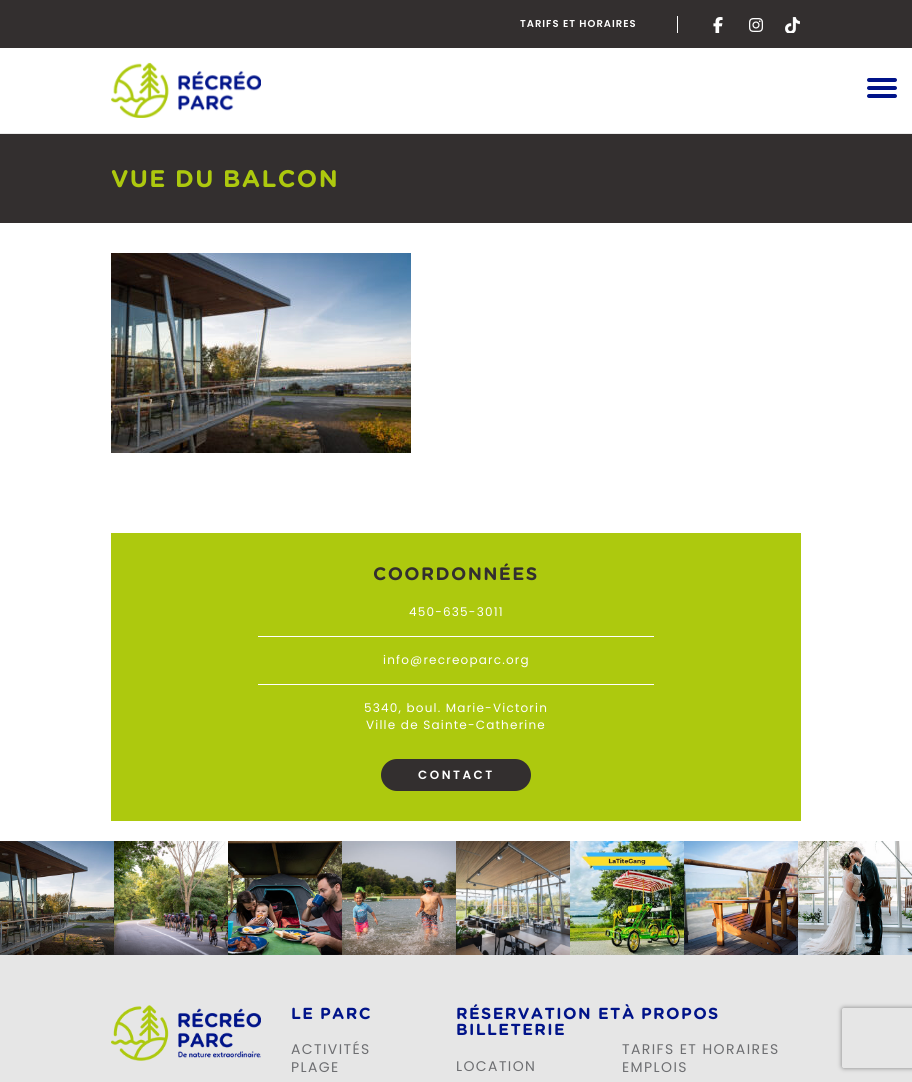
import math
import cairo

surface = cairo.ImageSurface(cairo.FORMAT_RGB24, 912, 1082)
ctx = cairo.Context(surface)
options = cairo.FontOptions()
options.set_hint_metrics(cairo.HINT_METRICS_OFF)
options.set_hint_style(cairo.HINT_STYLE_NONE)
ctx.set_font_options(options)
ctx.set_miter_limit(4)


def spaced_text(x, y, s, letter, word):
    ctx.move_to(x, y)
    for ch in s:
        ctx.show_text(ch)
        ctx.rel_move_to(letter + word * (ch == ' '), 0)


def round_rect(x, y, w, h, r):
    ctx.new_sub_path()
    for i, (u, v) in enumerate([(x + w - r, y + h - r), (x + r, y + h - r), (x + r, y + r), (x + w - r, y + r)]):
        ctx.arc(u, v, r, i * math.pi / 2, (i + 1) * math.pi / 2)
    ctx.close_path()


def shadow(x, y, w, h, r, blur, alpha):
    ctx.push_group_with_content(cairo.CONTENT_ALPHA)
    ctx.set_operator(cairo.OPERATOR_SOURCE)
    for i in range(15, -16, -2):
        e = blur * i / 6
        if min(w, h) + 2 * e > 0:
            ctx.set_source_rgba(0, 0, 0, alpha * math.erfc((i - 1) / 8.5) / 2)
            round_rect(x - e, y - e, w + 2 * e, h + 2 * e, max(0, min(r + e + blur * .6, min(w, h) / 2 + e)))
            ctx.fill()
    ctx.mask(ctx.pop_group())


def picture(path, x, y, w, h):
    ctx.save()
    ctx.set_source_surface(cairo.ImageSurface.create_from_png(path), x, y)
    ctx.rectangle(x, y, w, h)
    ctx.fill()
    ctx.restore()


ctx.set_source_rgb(1, 1, 1)
ctx.paint()
ctx.set_source_rgb(0.922, 0.922, 0.922)
ctx.rectangle(0, 133, 912, 1)
ctx.fill()
ctx.set_source_rgb(0.2, 0.184, 0.184)
ctx.rectangle(0, 0, 912, 48)
ctx.fill()
ctx.select_font_face("Poppins SemiBold")
ctx.set_font_size(10)
ctx.set_source_rgb(1, 1, 1)
spaced_text(520, 27, "TARIFS ET HORAIRES", 1, 0)
ctx.rectangle(677, 16, 1, 17)
ctx.fill()
picture("img1.png", 713, 17, 10, 16)
picture("img2.png", 749, 18, 14, 14)
picture("img3.png", 785, 17, 15, 16)
picture("img4.png", 111, 62, 150, 56)
ctx.set_source_rgb(0, 0.078, 0.537)
round_rect(867, 78, 30, 4, 2)
ctx.fill()
round_rect(867, 86, 30, 4, 2)
ctx.fill()
round_rect(867, 94, 30, 4, 2)
ctx.fill()
ctx.set_source_rgb(0.2, 0.184, 0.184)
ctx.rectangle(0, 134, 912, 89)
ctx.fill()
ctx.select_font_face("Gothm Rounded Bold", cairo.FONT_SLANT_NORMAL, cairo.FONT_WEIGHT_BOLD)
ctx.set_font_size(24)
ctx.set_source_rgb(0.678, 0.788, 0.055)
spaced_text(111, 187, "VUE", 1.4, 0)
spaced_text(175, 187, "DU", 1.4, 0)
spaced_text(223, 187, "BALCON", 1.4, 0)
picture("img5.png", 111, 253, 300, 200)
ctx.rectangle(111, 533, 690, 288)
ctx.fill()
ctx.set_font_size(18)
ctx.set_source_rgb(0.2, 0.184, 0.184)
spaced_text(373, 580, "COORDONNÉES", 1.4, 0)
ctx.select_font_face("Poppins")
ctx.set_font_size(12)
ctx.set_source_rgb(1, 1, 1)
spaced_text(409, 616, "450-635-3011", 1.2, 0)
ctx.rectangle(258, 636, 396, 1)
ctx.fill()
spaced_text(383, 664, "info@recreoparc.org", 1.2, 0)
ctx.rectangle(258, 684, 396, 1)
ctx.fill()
spaced_text(364, 712, "5340, boul. Marie-Victorin", 1.2, 0)
spaced_text(366, 729, "Ville de Sainte-Catherine", 1.2, 0)
ctx.set_source_rgb(0.2, 0.184, 0.184)
round_rect(381, 759, 150, 32, 16)
ctx.fill()
ctx.select_font_face("Poppins SemiBold")
ctx.set_source_rgb(1, 1, 1)
spaced_text(418, 779, "CONTACT", 2.5, 0)
ctx.set_source_rgb(0.902, 0.902, 0.902)
ctx.rectangle(0, 955, 912, 127)
ctx.fill()
picture("img6.png", 0, 841, 114, 114)
picture("img7.png", 114, 841, 114, 114)
picture("img8.png", 228, 841, 114, 114)
picture("img9.png", 342, 841, 114, 114)
picture("img10.png", 456, 841, 114, 114)
picture("img11.png", 570, 841, 114, 114)
picture("img12.png", 684, 841, 114, 114)
picture("img13.png", 798, 841, 114, 114)
picture("img14.png", 111, 1005, 150, 56)
ctx.select_font_face("Gothm Rounded Bold", cairo.FONT_SLANT_NORMAL, cairo.FONT_WEIGHT_BOLD)
ctx.set_font_size(16)
ctx.set_source_rgb(0, 0.078, 0.537)
spaced_text(291, 1019, "LE", 1.4, 0)
spaced_text(320, 1019, "PARC", 1.4, 0)
ctx.select_font_face("Poppins")
ctx.set_font_size(14)
ctx.set_source_rgb(0.427, 0.431, 0.443)
spaced_text(291, 1054, "ACTIVITÉS", 1.4, 0)
spaced_text(291, 1072, "PLAGE", 1.4, 0)
ctx.select_font_face("Gothm Rounded Bold", cairo.FONT_SLANT_NORMAL, cairo.FONT_WEIGHT_BOLD)
ctx.set_font_size(16)
ctx.set_source_rgb(0, 0.078, 0.537)
spaced_text(456, 1019, "RÉSERVATION", 1.4, 0)
spaced_text(598, 1019, "ET", 1.4, 0)
spaced_text(456, 1035, "BILLETERIE", 1.4, 0)
ctx.select_font_face("Poppins")
ctx.set_font_size(14)
ctx.set_source_rgb(0.427, 0.431, 0.443)
spaced_text(456, 1071, "LOCATION", 1.4, 0)
ctx.select_font_face("Gothm Rounded Bold", cairo.FONT_SLANT_NORMAL, cairo.FONT_WEIGHT_BOLD)
ctx.set_font_size(16)
ctx.set_source_rgb(0, 0.078, 0.537)
spaced_text(622, 1019, "À", 1.4, 0)
spaced_text(641, 1019, "PROPOS", 1.4, 0)
ctx.select_font_face("Poppins")
ctx.set_font_size(14)
ctx.set_source_rgb(0.427, 0.431, 0.443)
spaced_text(622, 1054, "TARIFS ET HORAIRES", 1.4, 0)
spaced_text(622, 1072, "EMPLOIS", 1.4, 0)
ctx.save()
ctx.set_fill_rule(cairo.FILL_RULE_EVEN_ODD)
ctx.new_path()
ctx.move_to(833, 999)
ctx.line_to(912, 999)
ctx.line_to(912, 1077)
ctx.line_to(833, 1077)
ctx.close_path()
ctx.move_to(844, 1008)
ctx.line_to(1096, 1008)
ctx.curve_to(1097, 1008, 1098, 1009, 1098, 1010)
ctx.line_to(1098, 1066)
ctx.curve_to(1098, 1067, 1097, 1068, 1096, 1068)
ctx.line_to(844, 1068)
ctx.curve_to(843, 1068, 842, 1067, 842, 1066)
ctx.line_to(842, 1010)
ctx.curve_to(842, 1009, 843, 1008, 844, 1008)
ctx.close_path()
ctx.clip()
ctx.set_source_rgb(0.502, 0.502, 0.502)
shadow(842, 1008, 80, 60, 2, 2.5, 1)
ctx.restore()
surface.write_to_png("page.png")
